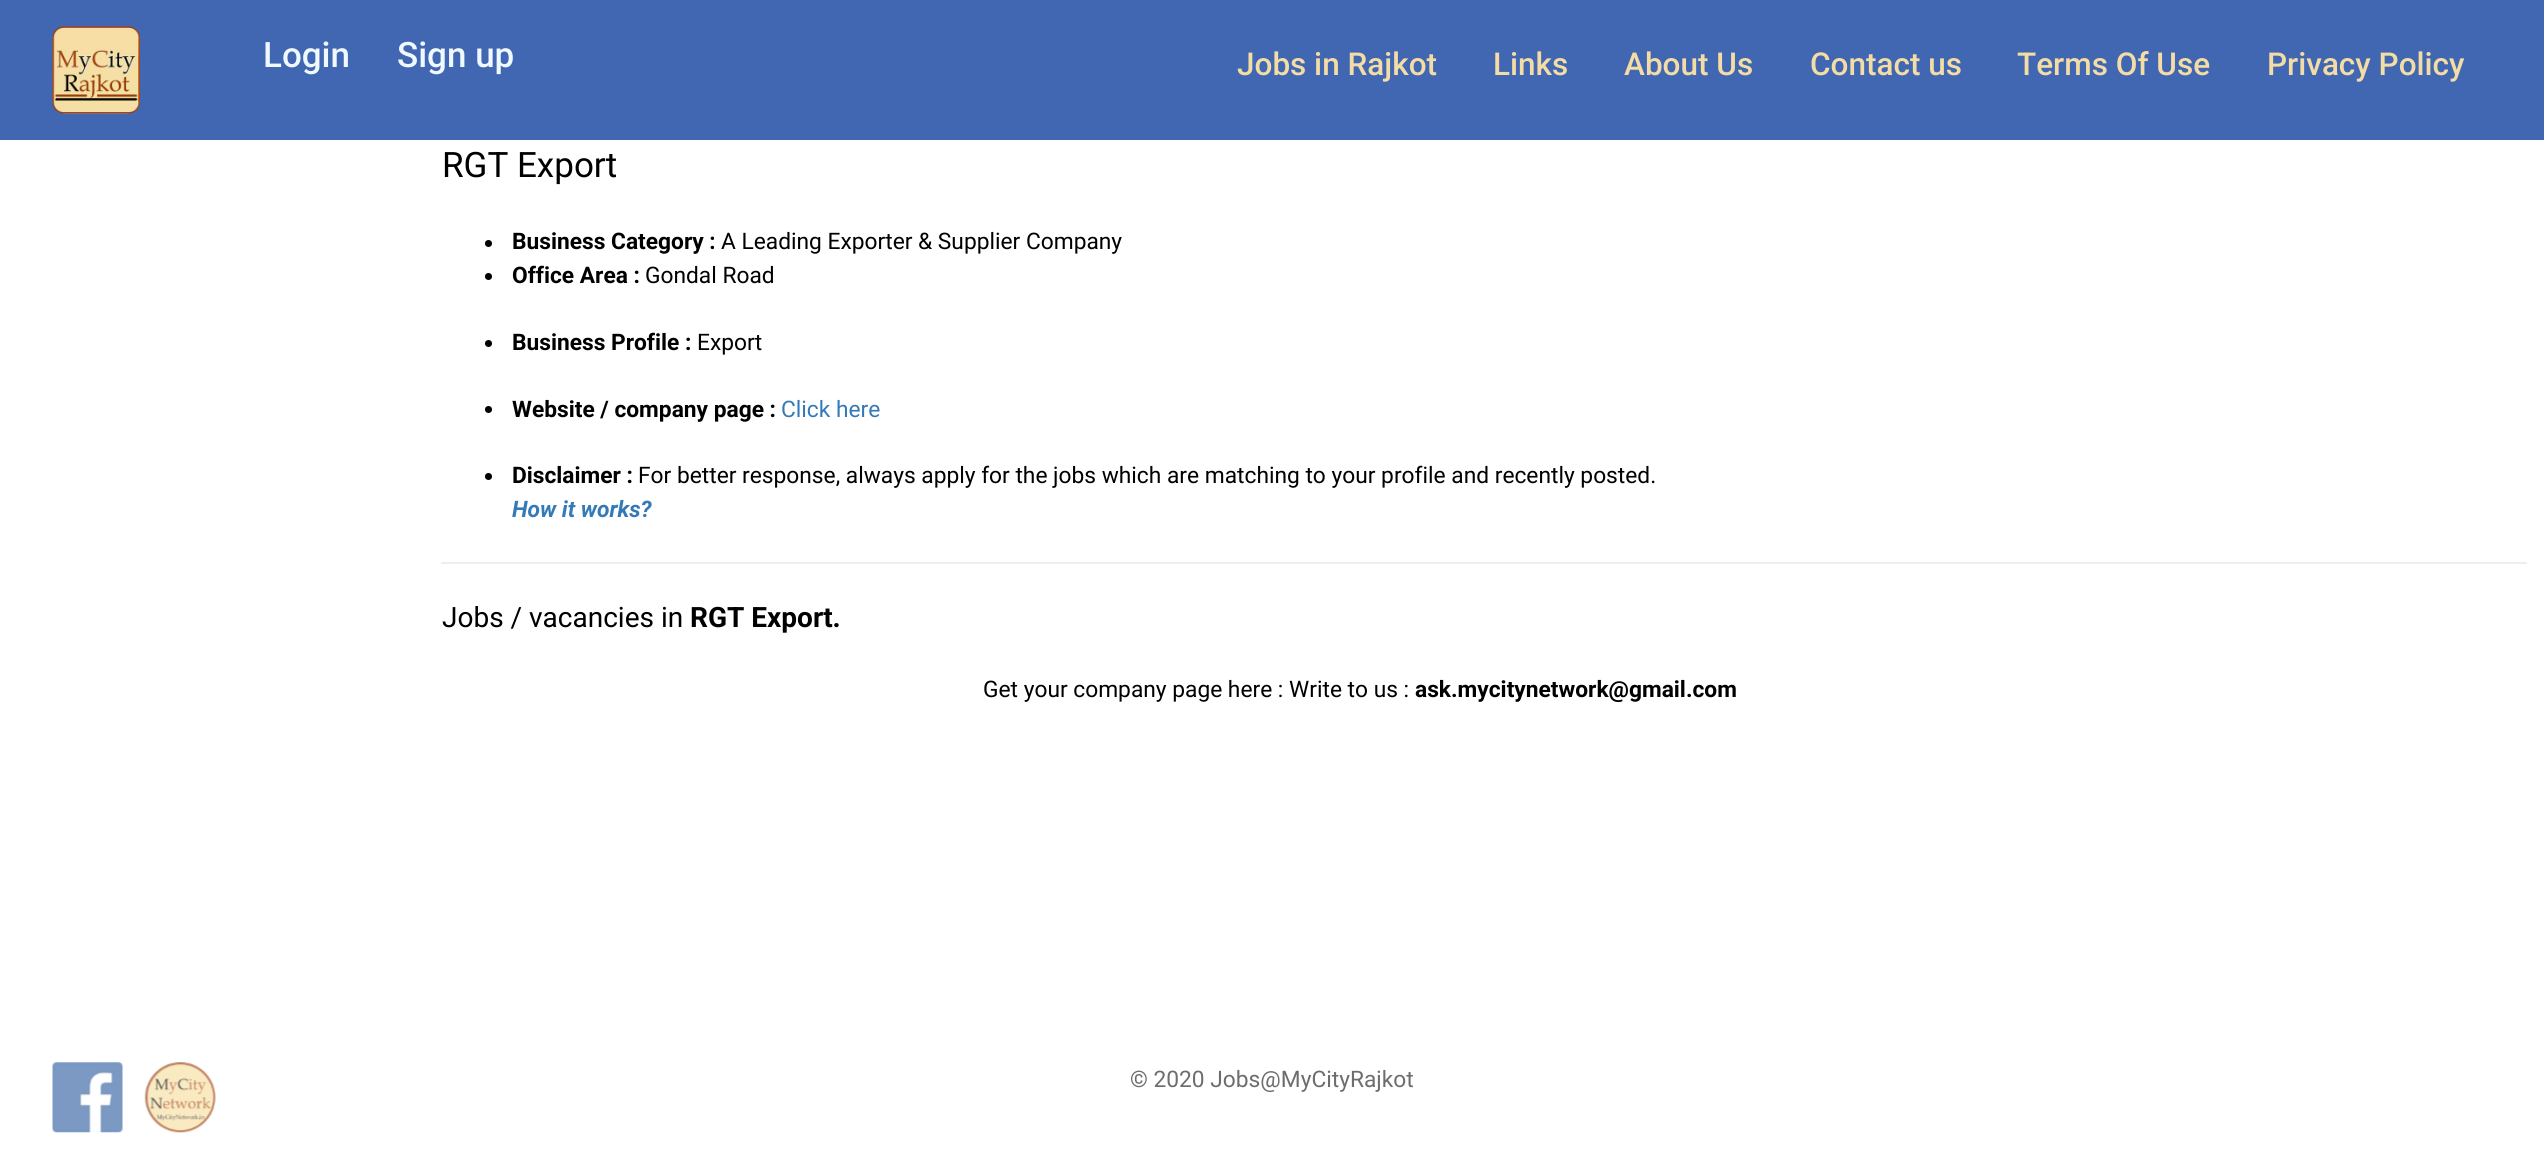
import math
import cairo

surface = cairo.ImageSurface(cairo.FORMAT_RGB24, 2544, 1167)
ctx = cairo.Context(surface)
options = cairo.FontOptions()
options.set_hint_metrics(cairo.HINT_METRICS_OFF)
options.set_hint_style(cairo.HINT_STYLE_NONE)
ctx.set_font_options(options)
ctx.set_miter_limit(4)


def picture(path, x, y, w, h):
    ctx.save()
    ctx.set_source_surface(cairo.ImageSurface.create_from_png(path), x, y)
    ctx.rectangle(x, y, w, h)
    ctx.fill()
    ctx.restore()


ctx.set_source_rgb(1, 1, 1)
ctx.paint()
ctx.set_source_rgb(0.255, 0.404, 0.698)
ctx.rectangle(0, 0, 2544, 140)
ctx.fill()
picture("img1.png", 52, 26, 88, 88)
ctx.select_font_face("Roboto Medium")
ctx.set_font_size(35)
ctx.set_source_rgb(0.941, 0.973, 1)
ctx.move_to(263, 67)
ctx.show_text("Login")
ctx.move_to(397, 67)
ctx.show_text("Sign up")
ctx.set_font_size(31.5)
ctx.set_source_rgb(0.957, 0.867, 0.647)
ctx.move_to(1237, 75)
ctx.show_text("Jobs in Rajkot")
ctx.move_to(1493, 75)
ctx.show_text("Links")
ctx.move_to(1624, 75)
ctx.show_text("About Us")
ctx.move_to(1810, 75)
ctx.show_text("Contact us")
ctx.move_to(2017, 75)
ctx.show_text("Terms Of Use")
ctx.move_to(2267, 75)
ctx.show_text("Privacy Policy")
ctx.select_font_face("Roboto")
ctx.set_font_size(35)
ctx.set_source_rgb(0, 0, 0)
ctx.move_to(442, 177)
ctx.show_text("RGT Export")
ctx.new_path()
ctx.arc(488.5, 243.5, 3.5, 0, 2 * math.pi)
ctx.fill()
ctx.select_font_face("Roboto", cairo.FONT_SLANT_NORMAL, cairo.FONT_WEIGHT_BOLD)
ctx.set_font_size(22.75)
ctx.move_to(512, 249)
ctx.show_text("Business Category :")
ctx.select_font_face("Roboto")
ctx.move_to(721, 249)
ctx.show_text("A Leading Exporter & Supplier Company")
ctx.new_path()
ctx.arc(488.5, 276.5, 3.5, 0, 2 * math.pi)
ctx.fill()
ctx.select_font_face("Roboto", cairo.FONT_SLANT_NORMAL, cairo.FONT_WEIGHT_BOLD)
ctx.move_to(512, 283)
ctx.show_text("Office Area :")
ctx.select_font_face("Roboto")
ctx.move_to(645, 283)
ctx.show_text("Gondal Road")
ctx.new_path()
ctx.arc(488.5, 343.5, 3.5, 0, 2 * math.pi)
ctx.fill()
ctx.select_font_face("Roboto", cairo.FONT_SLANT_NORMAL, cairo.FONT_WEIGHT_BOLD)
ctx.move_to(512, 350)
ctx.show_text("Business Profile :")
ctx.select_font_face("Roboto")
ctx.move_to(697, 350)
ctx.show_text("Export")
ctx.new_path()
ctx.arc(488.5, 409.5, 3.5, 0, 2 * math.pi)
ctx.fill()
ctx.select_font_face("Roboto", cairo.FONT_SLANT_NORMAL, cairo.FONT_WEIGHT_BOLD)
ctx.move_to(512, 417)
ctx.show_text("Website / company page :")
ctx.select_font_face("Roboto")
ctx.set_source_rgb(0.2, 0.478, 0.718)
ctx.move_to(781, 417)
ctx.show_text("Click here")
ctx.set_source_rgb(0, 0, 0)
ctx.new_path()
ctx.arc(488.5, 476.5, 3.5, 0, 2 * math.pi)
ctx.fill()
ctx.select_font_face("Roboto", cairo.FONT_SLANT_NORMAL, cairo.FONT_WEIGHT_BOLD)
ctx.move_to(512, 483)
ctx.show_text("Disclaimer :")
ctx.select_font_face("Roboto")
ctx.move_to(638, 483)
ctx.show_text("For better response, always apply for the jobs which are matching to your profile and recently posted.")
ctx.select_font_face("Roboto", cairo.FONT_SLANT_ITALIC, cairo.FONT_WEIGHT_BOLD)
ctx.set_source_rgb(0.2, 0.478, 0.718)
ctx.move_to(512, 517)
ctx.show_text("How it works?")
ctx.set_source_rgb(0.933, 0.933, 0.933)
ctx.rectangle(441, 562, 2086, 2)
ctx.fill()
ctx.select_font_face("Roboto")
ctx.set_font_size(28)
ctx.set_source_rgb(0, 0, 0)
ctx.move_to(442, 627)
ctx.show_text("Jobs / vacancies in")
ctx.select_font_face("Roboto", cairo.FONT_SLANT_NORMAL, cairo.FONT_WEIGHT_BOLD)
ctx.move_to(690, 627)
ctx.show_text("RGT Export.")
ctx.select_font_face("Roboto")
ctx.set_font_size(22.75)
ctx.move_to(983, 697)
ctx.show_text("Get your company page here : Write to us :")
ctx.select_font_face("Roboto", cairo.FONT_SLANT_NORMAL, cairo.FONT_WEIGHT_BOLD)
ctx.move_to(1415, 697)
ctx.show_text("ask.mycitynetwork@gmail.com")
picture("img2.png", 52, 1062, 71, 71)
picture("img3.png", 144, 1062, 72, 71)
ctx.select_font_face("Roboto")
ctx.set_source_rgb(0.427, 0.427, 0.427)
ctx.move_to(1130, 1087)
ctx.show_text("© 2020 Jobs@MyCityRajkot")
surface.write_to_png("page.png")
